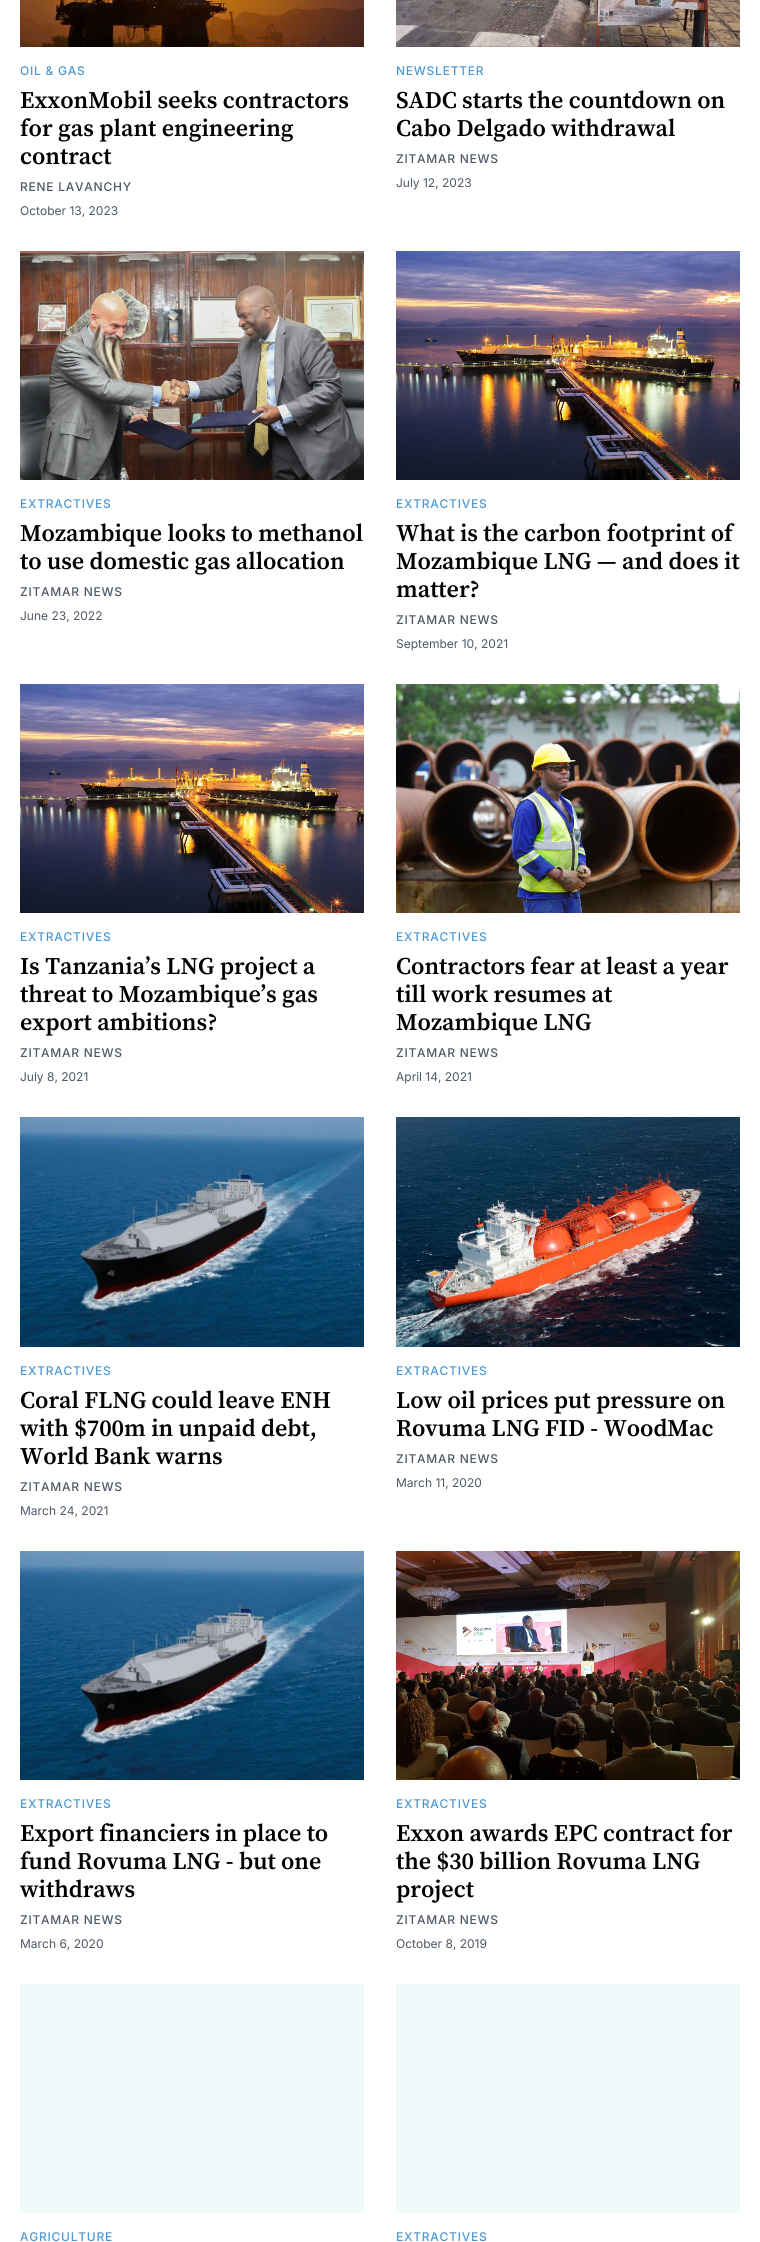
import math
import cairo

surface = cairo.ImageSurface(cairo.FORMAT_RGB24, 760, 2242)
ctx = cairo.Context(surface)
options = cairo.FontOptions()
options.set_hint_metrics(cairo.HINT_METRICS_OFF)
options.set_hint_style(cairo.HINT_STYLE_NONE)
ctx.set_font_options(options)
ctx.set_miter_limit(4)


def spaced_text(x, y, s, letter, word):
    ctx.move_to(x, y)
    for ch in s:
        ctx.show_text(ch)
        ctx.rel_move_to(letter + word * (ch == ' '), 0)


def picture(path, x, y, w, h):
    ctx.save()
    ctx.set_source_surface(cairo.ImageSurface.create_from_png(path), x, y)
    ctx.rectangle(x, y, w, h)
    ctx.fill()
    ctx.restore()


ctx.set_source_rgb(1, 1, 1)
ctx.paint()
picture("img1.png", 20, 0, 344, 47)
ctx.select_font_face("Inter Medium")
ctx.set_font_size(12)
ctx.set_source_rgb(0.306, 0.596, 0.824)
spaced_text(20, 75, "OIL & GAS", 0.75, 0)
ctx.select_font_face("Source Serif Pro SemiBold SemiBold")
ctx.set_font_size(24)
ctx.set_source_rgb(0, 0, 0)
ctx.move_to(20, 108)
ctx.show_text("ExxonMobil seeks contractors")
ctx.move_to(20, 136)
ctx.show_text("for gas plant engineering")
ctx.move_to(20, 164)
ctx.show_text("contract")
ctx.select_font_face("Inter Medium")
ctx.set_font_size(12)
ctx.set_source_rgb(0.306, 0.349, 0.396)
spaced_text(20, 191, "RENE LAVANCHY", 0.75, 0)
ctx.select_font_face("Inter")
ctx.move_to(20, 215)
ctx.show_text("October 13, 2023")
picture("img2.png", 396, 0, 344, 47)
ctx.select_font_face("Inter Medium")
ctx.set_source_rgb(0.306, 0.596, 0.824)
spaced_text(396, 75, "NEWSLETTER", 0.75, 0)
ctx.select_font_face("Source Serif Pro SemiBold SemiBold")
ctx.set_font_size(24)
ctx.set_source_rgb(0, 0, 0)
ctx.move_to(396, 108)
ctx.show_text("SADC starts the countdown on")
ctx.move_to(396, 136)
ctx.show_text("Cabo Delgado withdrawal")
ctx.select_font_face("Inter Medium")
ctx.set_font_size(12)
ctx.set_source_rgb(0.306, 0.349, 0.396)
spaced_text(396, 163, "ZITAMAR NEWS", 0.75, 0)
ctx.select_font_face("Inter")
ctx.move_to(396, 187)
ctx.show_text("July 12, 2023")
picture("img3.png", 20, 251, 344, 229)
ctx.select_font_face("Inter Medium")
ctx.set_source_rgb(0.306, 0.596, 0.824)
spaced_text(20, 508, "EXTRACTIVES", 0.75, 0)
ctx.select_font_face("Source Serif Pro SemiBold SemiBold")
ctx.set_font_size(24)
ctx.set_source_rgb(0, 0, 0)
ctx.move_to(20, 541)
ctx.show_text("Mozambique looks to methanol")
ctx.move_to(20, 569)
ctx.show_text("to use domestic gas allocation")
ctx.select_font_face("Inter Medium")
ctx.set_font_size(12)
ctx.set_source_rgb(0.306, 0.349, 0.396)
spaced_text(20, 596, "ZITAMAR NEWS", 0.75, 0)
ctx.select_font_face("Inter")
ctx.move_to(20, 620)
ctx.show_text("June 23, 2022")
picture("img4.png", 396, 251, 344, 229)
ctx.select_font_face("Inter Medium")
ctx.set_source_rgb(0.306, 0.596, 0.824)
spaced_text(396, 508, "EXTRACTIVES", 0.75, 0)
ctx.select_font_face("Source Serif Pro SemiBold SemiBold")
ctx.set_font_size(24)
ctx.set_source_rgb(0, 0, 0)
ctx.move_to(396, 541)
ctx.show_text("What is the carbon footprint of")
ctx.move_to(396, 569)
ctx.show_text("Mozambique LNG — and does it")
ctx.move_to(396, 597)
ctx.show_text("matter?")
ctx.select_font_face("Inter Medium")
ctx.set_font_size(12)
ctx.set_source_rgb(0.306, 0.349, 0.396)
spaced_text(396, 624, "ZITAMAR NEWS", 0.75, 0)
ctx.select_font_face("Inter")
ctx.move_to(396, 648)
ctx.show_text("September 10, 2021")
picture("img4.png", 20, 684, 344, 229)
ctx.select_font_face("Inter Medium")
ctx.set_source_rgb(0.306, 0.596, 0.824)
spaced_text(20, 941, "EXTRACTIVES", 0.75, 0)
ctx.select_font_face("Source Serif Pro SemiBold SemiBold")
ctx.set_font_size(24)
ctx.set_source_rgb(0, 0, 0)
ctx.move_to(20, 974)
ctx.show_text("Is Tanzania’s LNG project a")
ctx.move_to(20, 1002)
ctx.show_text("threat to Mozambique’s gas")
ctx.move_to(20, 1030)
ctx.show_text("export ambitions?")
ctx.select_font_face("Inter Medium")
ctx.set_font_size(12)
ctx.set_source_rgb(0.306, 0.349, 0.396)
spaced_text(20, 1057, "ZITAMAR NEWS", 0.75, 0)
ctx.select_font_face("Inter")
ctx.move_to(20, 1081)
ctx.show_text("July 8, 2021")
picture("img5.png", 396, 684, 344, 229)
ctx.select_font_face("Inter Medium")
ctx.set_source_rgb(0.306, 0.596, 0.824)
spaced_text(396, 941, "EXTRACTIVES", 0.75, 0)
ctx.select_font_face("Source Serif Pro SemiBold SemiBold")
ctx.set_font_size(24)
ctx.set_source_rgb(0, 0, 0)
ctx.move_to(396, 974)
ctx.show_text("Contractors fear at least a year")
ctx.move_to(396, 1002)
ctx.show_text("till work resumes at")
ctx.move_to(396, 1030)
ctx.show_text("Mozambique LNG")
ctx.select_font_face("Inter Medium")
ctx.set_font_size(12)
ctx.set_source_rgb(0.306, 0.349, 0.396)
spaced_text(396, 1057, "ZITAMAR NEWS", 0.75, 0)
ctx.select_font_face("Inter")
ctx.move_to(396, 1081)
ctx.show_text("April 14, 2021")
picture("img6.png", 20, 1117, 344, 230)
ctx.select_font_face("Inter Medium")
ctx.set_source_rgb(0.306, 0.596, 0.824)
spaced_text(20, 1375, "EXTRACTIVES", 0.75, 0)
ctx.select_font_face("Source Serif Pro SemiBold SemiBold")
ctx.set_font_size(24)
ctx.set_source_rgb(0, 0, 0)
ctx.move_to(20, 1408)
ctx.show_text("Coral FLNG could leave ENH")
ctx.move_to(20, 1436)
ctx.show_text("with $700m in unpaid debt,")
ctx.move_to(20, 1464)
ctx.show_text("World Bank warns")
ctx.select_font_face("Inter Medium")
ctx.set_font_size(12)
ctx.set_source_rgb(0.306, 0.349, 0.396)
spaced_text(20, 1491, "ZITAMAR NEWS", 0.75, 0)
ctx.select_font_face("Inter")
ctx.move_to(20, 1515)
ctx.show_text("March 24, 2021")
picture("img7.png", 396, 1117, 344, 230)
ctx.select_font_face("Inter Medium")
ctx.set_source_rgb(0.306, 0.596, 0.824)
spaced_text(396, 1375, "EXTRACTIVES", 0.75, 0)
ctx.select_font_face("Source Serif Pro SemiBold SemiBold")
ctx.set_font_size(24)
ctx.set_source_rgb(0, 0, 0)
ctx.move_to(396, 1408)
ctx.show_text("Low oil prices put pressure on")
ctx.move_to(396, 1436)
ctx.show_text("Rovuma LNG FID - WoodMac")
ctx.select_font_face("Inter Medium")
ctx.set_font_size(12)
ctx.set_source_rgb(0.306, 0.349, 0.396)
spaced_text(396, 1463, "ZITAMAR NEWS", 0.75, 0)
ctx.select_font_face("Inter")
ctx.move_to(396, 1487)
ctx.show_text("March 11, 2020")
picture("img8.png", 20, 1551, 344, 229)
ctx.select_font_face("Inter Medium")
ctx.set_source_rgb(0.306, 0.596, 0.824)
spaced_text(20, 1808, "EXTRACTIVES", 0.75, 0)
ctx.select_font_face("Source Serif Pro SemiBold SemiBold")
ctx.set_font_size(24)
ctx.set_source_rgb(0, 0, 0)
ctx.move_to(20, 1841)
ctx.show_text("Export financiers in place to")
ctx.move_to(20, 1869)
ctx.show_text("fund Rovuma LNG - but one")
ctx.move_to(20, 1897)
ctx.show_text("withdraws")
ctx.select_font_face("Inter Medium")
ctx.set_font_size(12)
ctx.set_source_rgb(0.306, 0.349, 0.396)
spaced_text(20, 1924, "ZITAMAR NEWS", 0.75, 0)
ctx.select_font_face("Inter")
ctx.move_to(20, 1948)
ctx.show_text("March 6, 2020")
picture("img9.png", 396, 1551, 344, 229)
ctx.select_font_face("Inter Medium")
ctx.set_source_rgb(0.306, 0.596, 0.824)
spaced_text(396, 1808, "EXTRACTIVES", 0.75, 0)
ctx.select_font_face("Source Serif Pro SemiBold SemiBold")
ctx.set_font_size(24)
ctx.set_source_rgb(0, 0, 0)
ctx.move_to(396, 1841)
ctx.show_text("Exxon awards EPC contract for")
ctx.move_to(396, 1869)
ctx.show_text("the $30 billion Rovuma LNG")
ctx.move_to(396, 1897)
ctx.show_text("project")
ctx.select_font_face("Inter Medium")
ctx.set_font_size(12)
ctx.set_source_rgb(0.306, 0.349, 0.396)
spaced_text(396, 1924, "ZITAMAR NEWS", 0.75, 0)
ctx.select_font_face("Inter")
ctx.move_to(396, 1948)
ctx.show_text("October 8, 2019")
ctx.set_source_rgb(0.937, 0.973, 0.98)
ctx.rectangle(20, 1984, 344, 229)
ctx.fill()
ctx.select_font_face("Inter Medium")
ctx.set_source_rgb(0.306, 0.596, 0.824)
spaced_text(20, 2241, "AGRICULTURE", 0.75, 0)
ctx.set_source_rgb(0.937, 0.973, 0.98)
ctx.rectangle(396, 1984, 344, 229)
ctx.fill()
ctx.set_source_rgb(0.306, 0.596, 0.824)
spaced_text(396, 2241, "EXTRACTIVES", 0.75, 0)
surface.write_to_png("page.png")
